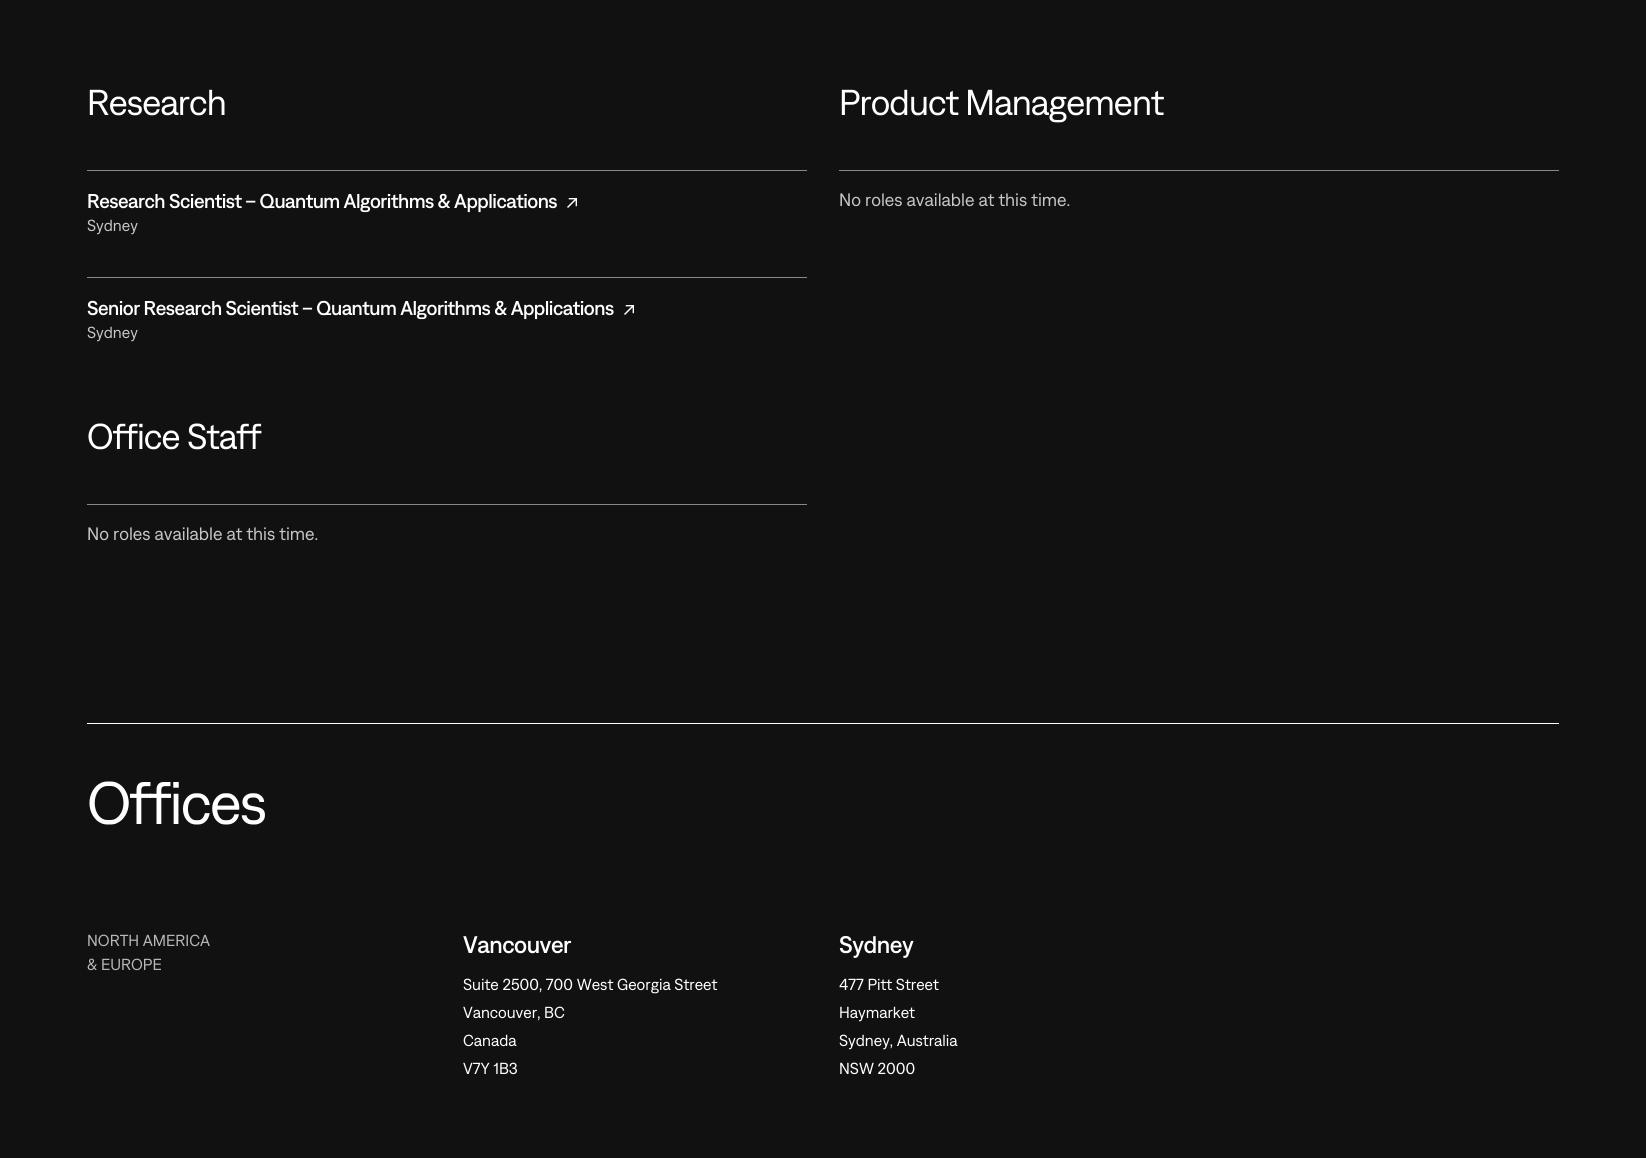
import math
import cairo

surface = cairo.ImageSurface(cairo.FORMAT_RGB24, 1646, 1158)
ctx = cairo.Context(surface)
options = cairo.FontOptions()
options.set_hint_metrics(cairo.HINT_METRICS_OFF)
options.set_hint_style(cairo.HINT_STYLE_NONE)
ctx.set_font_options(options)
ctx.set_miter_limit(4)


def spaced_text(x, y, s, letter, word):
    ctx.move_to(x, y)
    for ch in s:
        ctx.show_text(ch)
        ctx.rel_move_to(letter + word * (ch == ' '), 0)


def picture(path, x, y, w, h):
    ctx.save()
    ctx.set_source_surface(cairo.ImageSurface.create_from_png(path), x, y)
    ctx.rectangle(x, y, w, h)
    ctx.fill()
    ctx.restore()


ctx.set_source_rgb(0.067, 0.067, 0.071)
ctx.paint()
ctx.set_source_rgb(1, 1, 1)
ctx.rectangle(87, 723, 1472, 1)
ctx.fill()
ctx.select_font_face("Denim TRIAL")
ctx.set_font_size(36)
spaced_text(87, 115, "Research", -0.9, 0)
ctx.set_source_rgb(0.533, 0.533, 0.537)
ctx.rectangle(87, 170, 720, 1)
ctx.fill()
ctx.select_font_face("Denim TRIAL Medium")
ctx.set_font_size(20)
ctx.set_source_rgb(1, 1, 1)
spaced_text(87, 208, "Research Scientist – Quantum Algorithms & Applications", -0.5, 0)
picture("img1.png", 567, 198, 10, 10)
ctx.select_font_face("Denim TRIAL")
ctx.set_font_size(16)
ctx.set_source_rgb(0.776, 0.776, 0.776)
ctx.move_to(87, 231)
ctx.show_text("Sydney")
ctx.set_source_rgb(0.533, 0.533, 0.537)
ctx.rectangle(87, 277, 720, 1)
ctx.fill()
ctx.select_font_face("Denim TRIAL Medium")
ctx.set_font_size(20)
ctx.set_source_rgb(1, 1, 1)
spaced_text(87, 315, "Senior Research Scientist – Quantum Algorithms & Applications", -0.5, 0)
picture("img1.png", 624, 305, 10, 10)
ctx.select_font_face("Denim TRIAL")
ctx.set_font_size(16)
ctx.set_source_rgb(0.776, 0.776, 0.776)
ctx.move_to(87, 338)
ctx.show_text("Sydney")
ctx.set_font_size(36)
ctx.set_source_rgb(1, 1, 1)
spaced_text(839, 115, "Product Management", -0.9, 0)
ctx.set_source_rgb(0.533, 0.533, 0.537)
ctx.rectangle(839, 170, 720, 1)
ctx.fill()
ctx.set_font_size(18)
ctx.set_source_rgb(0.776, 0.776, 0.776)
ctx.move_to(839, 206)
ctx.show_text("No roles available at this time.")
ctx.set_font_size(36)
ctx.set_source_rgb(1, 1, 1)
spaced_text(87, 449, "Office Staff", -0.9, 0)
ctx.set_source_rgb(0.533, 0.533, 0.537)
ctx.rectangle(87, 504, 720, 1)
ctx.fill()
ctx.set_font_size(18)
ctx.set_source_rgb(0.776, 0.776, 0.776)
ctx.move_to(87, 540)
ctx.show_text("No roles available at this time.")
ctx.set_font_size(60)
ctx.set_source_rgb(1, 1, 1)
spaced_text(87, 824, "Offices", -1.75, 0)
ctx.set_font_size(16)
ctx.set_source_rgb(0.722, 0.722, 0.722)
ctx.move_to(87, 946)
ctx.show_text("NORTH AMERICA")
ctx.move_to(87, 970)
ctx.show_text("& EUROPE")
ctx.select_font_face("Denim TRIAL Medium")
ctx.set_font_size(24)
ctx.set_source_rgb(1, 1, 1)
spaced_text(463, 953, "Vancouver", -0.5, 0)
ctx.select_font_face("Denim TRIAL")
ctx.set_font_size(16)
ctx.move_to(463, 990)
ctx.show_text("Suite 2500, 700 West Georgia Street")
ctx.move_to(463, 1018)
ctx.show_text("Vancouver, BC")
ctx.move_to(463, 1046)
ctx.show_text("Canada")
ctx.move_to(463, 1074)
ctx.show_text("V7Y 1B3")
ctx.select_font_face("Denim TRIAL Medium")
ctx.set_font_size(24)
spaced_text(839, 953, "Sydney", -0.5, 0)
ctx.select_font_face("Denim TRIAL")
ctx.set_font_size(16)
ctx.move_to(839, 990)
ctx.show_text("477 Pitt Street")
ctx.move_to(839, 1018)
ctx.show_text("Haymarket")
ctx.move_to(839, 1046)
ctx.show_text("Sydney, Australia")
ctx.move_to(839, 1074)
ctx.show_text("NSW 2000")
surface.write_to_png("page.png")
